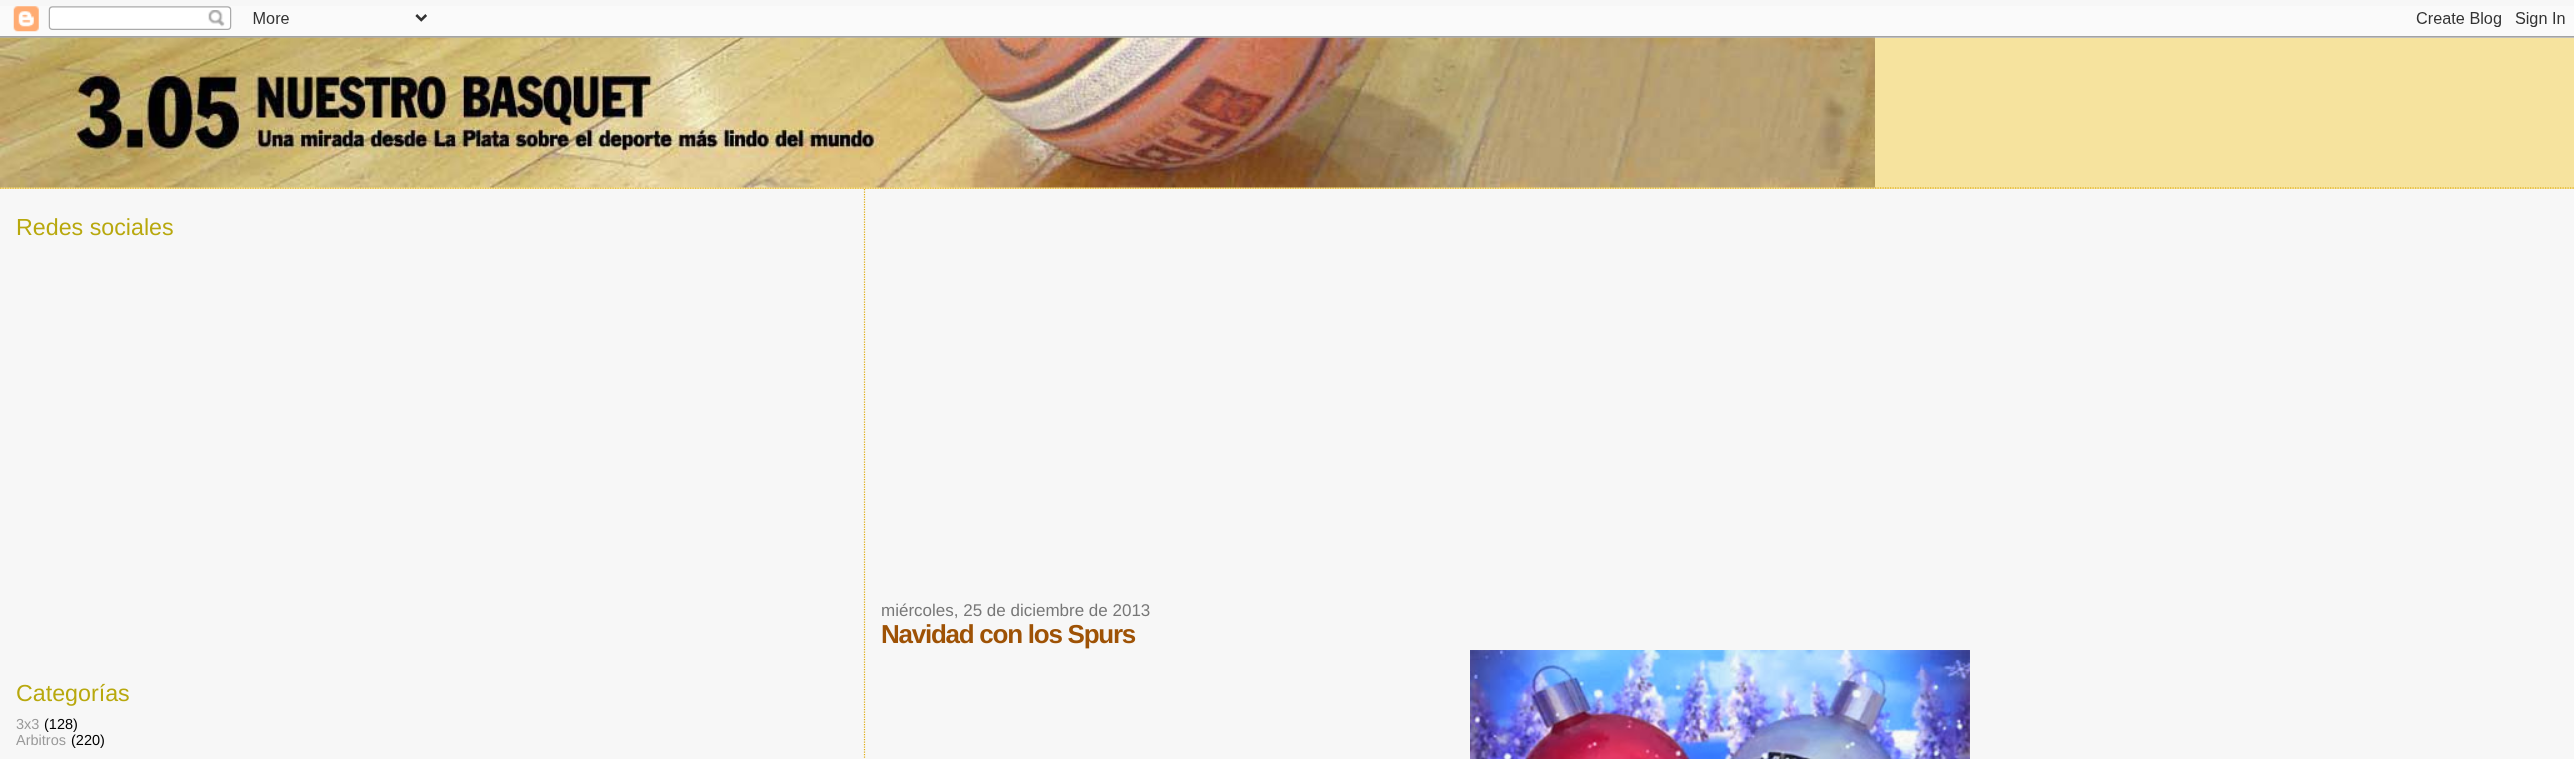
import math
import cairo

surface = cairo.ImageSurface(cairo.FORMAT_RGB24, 2574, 759)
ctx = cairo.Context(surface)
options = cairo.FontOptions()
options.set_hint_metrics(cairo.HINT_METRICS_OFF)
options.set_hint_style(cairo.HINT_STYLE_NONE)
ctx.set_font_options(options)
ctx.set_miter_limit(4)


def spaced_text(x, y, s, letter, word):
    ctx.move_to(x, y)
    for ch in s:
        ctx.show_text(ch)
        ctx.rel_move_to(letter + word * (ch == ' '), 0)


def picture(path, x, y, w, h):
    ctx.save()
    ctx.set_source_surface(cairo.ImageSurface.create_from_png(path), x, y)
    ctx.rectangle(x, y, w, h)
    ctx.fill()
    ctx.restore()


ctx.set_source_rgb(0.965, 0.965, 0.965)
ctx.paint()
ctx.set_source_rgb(0.961, 0.89, 0.62)
ctx.rectangle(0, 38, 2574, 151)
ctx.fill()
ctx.new_path()
ctx.move_to(0, 188)
ctx.line_to(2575, 188)
ctx.set_source_rgb(0.878, 0.678, 0.071)
ctx.set_line_width(1.2)
ctx.set_dash([1.25, 1.25])
ctx.stroke()
picture("img2.png", 0, 37, 1875, 151)
picture("img1.png", 0, 6, 2574, 32)
ctx.select_font_face("Liberation Sans")
ctx.set_font_size(23.25)
ctx.set_source_rgb(0.722, 0.659, 0.051)
ctx.move_to(16, 235)
ctx.show_text("Redes sociales")
ctx.move_to(16, 701)
ctx.show_text("Categorías")
ctx.set_font_size(14.5)
ctx.set_source_rgb(0.6, 0.6, 0.6)
ctx.move_to(16, 729)
ctx.show_text("3x3")
ctx.set_source_rgb(0, 0, 0)
ctx.move_to(44, 729)
ctx.show_text("(128)")
ctx.set_source_rgb(0.6, 0.6, 0.6)
ctx.move_to(16, 745)
ctx.show_text("Arbitros")
ctx.set_source_rgb(0, 0, 0)
ctx.move_to(71, 745)
ctx.show_text("(220)")
ctx.new_path()
ctx.move_to(864.5, 189)
ctx.line_to(864.5, 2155)
ctx.set_source_rgb(0.878, 0.678, 0.071)
ctx.stroke()
ctx.set_font_size(17)
ctx.set_source_rgb(0.467, 0.467, 0.467)
ctx.move_to(881, 616)
ctx.show_text("miércoles, 25 de diciembre de 2013")
ctx.select_font_face("Liberation Sans", cairo.FONT_SLANT_NORMAL, cairo.FONT_WEIGHT_BOLD)
ctx.set_font_size(26)
ctx.set_source_rgb(0.62, 0.322, 0.02)
spaced_text(881, 643, "Navidad con los Spurs", -1.25, 0)
picture("img3.png", 1470, 650, 500, 109)
surface.write_to_png("page.png")
